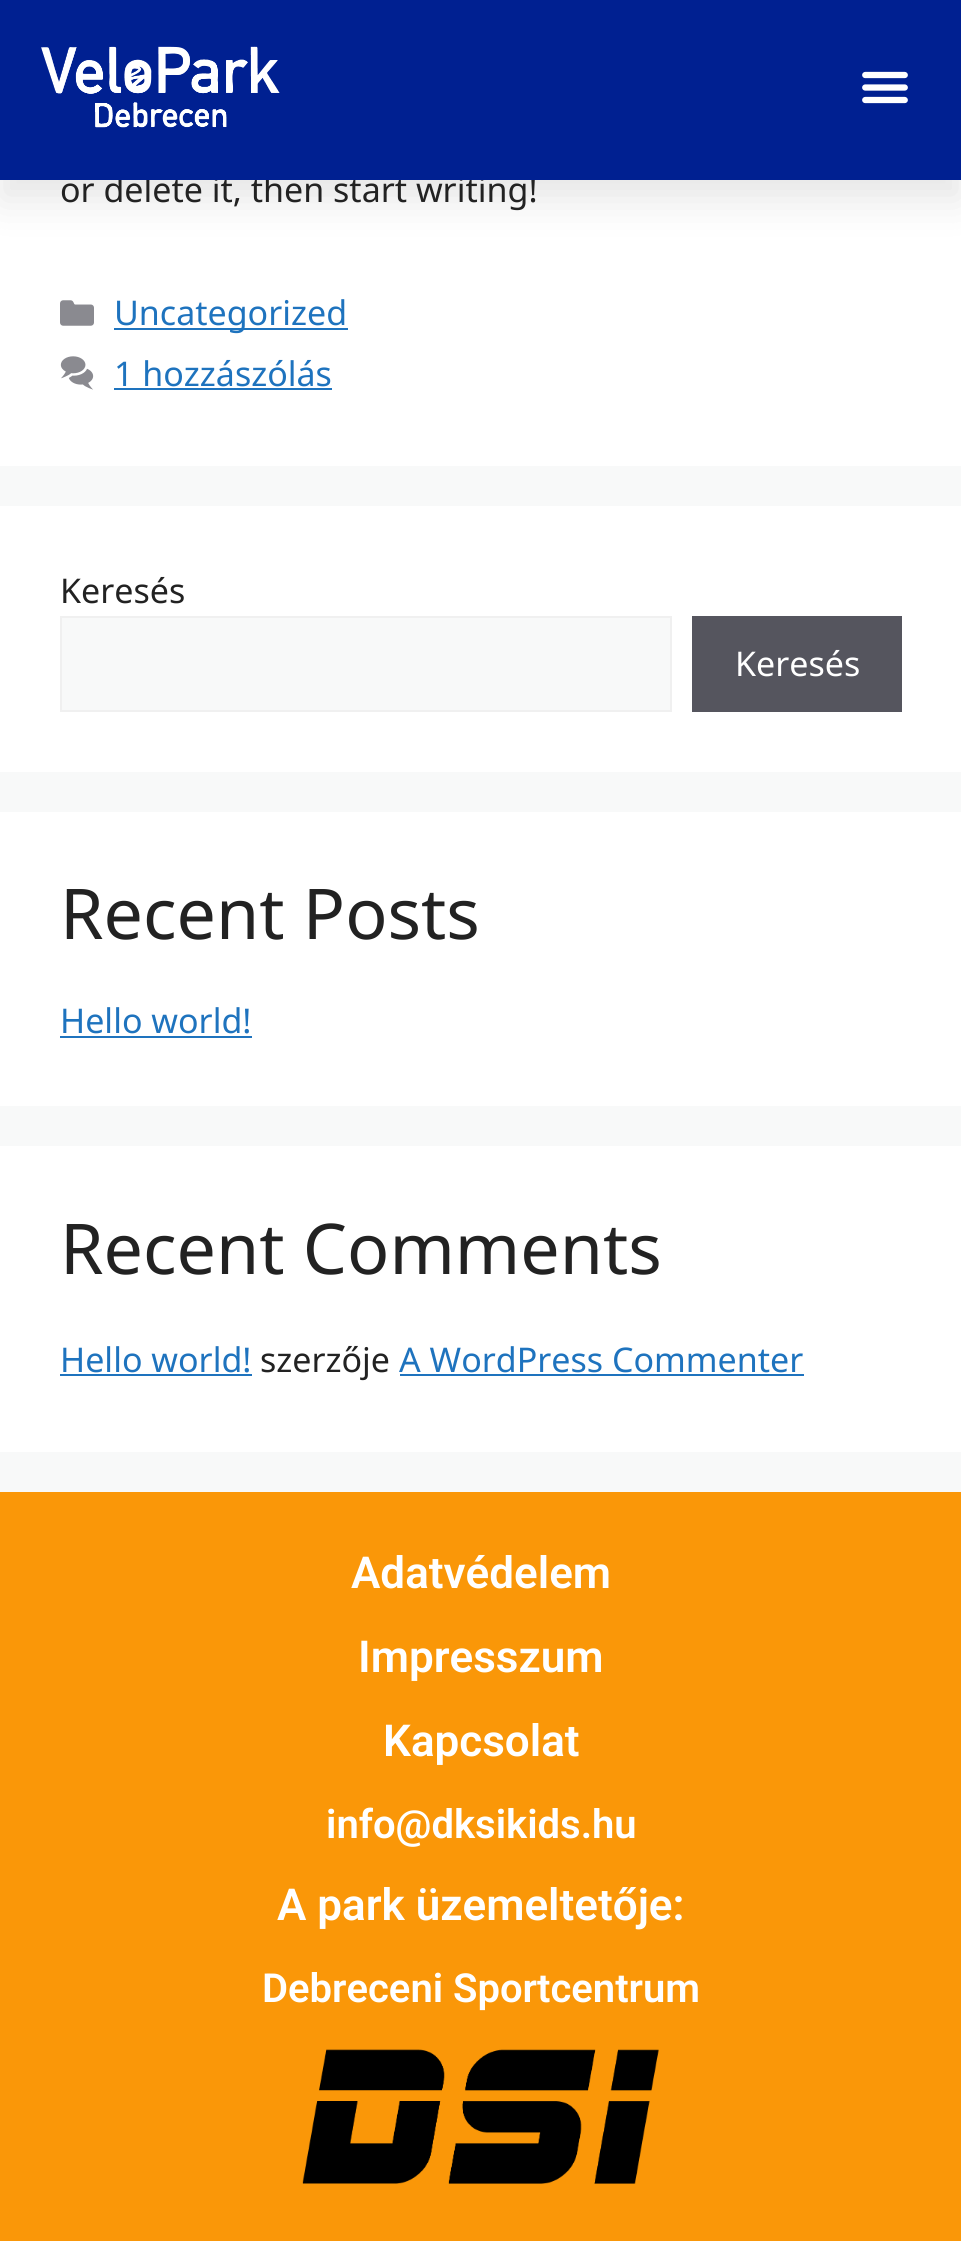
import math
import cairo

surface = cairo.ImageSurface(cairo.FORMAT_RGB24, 961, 2241)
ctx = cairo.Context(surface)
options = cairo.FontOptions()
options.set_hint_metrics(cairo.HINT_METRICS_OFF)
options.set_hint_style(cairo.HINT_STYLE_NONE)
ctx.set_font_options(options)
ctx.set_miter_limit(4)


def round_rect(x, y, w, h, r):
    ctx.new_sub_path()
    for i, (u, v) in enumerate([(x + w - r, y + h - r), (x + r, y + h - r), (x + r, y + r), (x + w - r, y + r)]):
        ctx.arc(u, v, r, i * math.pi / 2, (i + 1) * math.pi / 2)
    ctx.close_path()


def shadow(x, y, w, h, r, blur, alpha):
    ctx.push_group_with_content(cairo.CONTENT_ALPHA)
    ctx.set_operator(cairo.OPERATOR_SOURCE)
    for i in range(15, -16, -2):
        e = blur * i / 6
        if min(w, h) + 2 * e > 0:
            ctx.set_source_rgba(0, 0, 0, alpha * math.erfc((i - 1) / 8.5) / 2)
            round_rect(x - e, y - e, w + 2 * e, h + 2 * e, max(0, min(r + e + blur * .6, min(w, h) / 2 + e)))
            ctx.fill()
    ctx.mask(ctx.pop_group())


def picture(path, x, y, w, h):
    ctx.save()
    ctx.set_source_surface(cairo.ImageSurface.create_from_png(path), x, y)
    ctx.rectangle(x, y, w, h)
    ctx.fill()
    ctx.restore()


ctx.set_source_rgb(0.969, 0.973, 0.976)
ctx.paint()
ctx.set_source_rgb(1, 1, 1)
ctx.rectangle(0, 180, 961, 286)
ctx.fill()
ctx.set_source_rgb(0, 0, 0)
shadow(0, 20, 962, 180, 0, 20, 0.1)
ctx.select_font_face("Noto Sans")
ctx.set_font_size(34)
ctx.set_source_rgb(0.133, 0.133, 0.133)
ctx.move_to(60, 202)
ctx.show_text("or delete it, then start writing!")
ctx.set_source_rgb(0, 0.125, 0.569)
ctx.rectangle(0, 0, 961, 180)
ctx.fill()
picture("img1.png", 41, 46, 239, 82)
picture("img2.png", 862, 71, 46, 33)
picture("img3.png", 60, 300, 34, 26)
ctx.set_source_rgb(0.118, 0.451, 0.745)
ctx.rectangle(114, 328, 234, 2)
ctx.fill()
ctx.move_to(114, 325)
ctx.show_text("Uncategorized")
picture("img4.png", 60, 356, 34, 34)
ctx.move_to(114, 386)
ctx.show_text("1 hozzászólás")
ctx.rectangle(114, 388, 218, 2)
ctx.fill()
ctx.set_source_rgb(1, 1, 1)
ctx.rectangle(0, 506, 961, 266)
ctx.fill()
ctx.set_source_rgb(0.133, 0.133, 0.133)
ctx.move_to(60, 603)
ctx.show_text("Keresés")
ctx.set_source_rgb(0.969, 0.973, 0.976)
ctx.rectangle(61, 617, 610, 94)
ctx.fill_preserve()
ctx.set_source_rgb(0.941, 0.941, 0.941)
ctx.stroke()
ctx.set_source_rgb(0.333, 0.333, 0.369)
ctx.rectangle(692, 616, 210, 96)
ctx.fill()
ctx.set_source_rgb(1, 1, 1)
ctx.move_to(735, 676)
ctx.show_text("Keresés")
ctx.rectangle(0, 812, 961, 294)
ctx.fill()
ctx.set_font_size(70)
ctx.set_source_rgb(0.133, 0.133, 0.133)
ctx.move_to(60, 939)
ctx.show_text("Recent Posts")
ctx.set_font_size(34)
ctx.set_source_rgb(0.118, 0.451, 0.745)
ctx.move_to(60, 1033)
ctx.show_text("Hello world!")
ctx.rectangle(60, 1036, 192, 2)
ctx.fill()
ctx.set_source_rgb(1, 1, 1)
ctx.rectangle(0, 1146, 961, 306)
ctx.fill()
ctx.set_font_size(70)
ctx.set_source_rgb(0.133, 0.133, 0.133)
ctx.move_to(60, 1274)
ctx.show_text("Recent Comments")
ctx.set_font_size(34)
ctx.set_source_rgb(0.118, 0.451, 0.745)
ctx.move_to(60, 1372)
ctx.show_text("Hello world!")
ctx.rectangle(60, 1374, 192, 2)
ctx.fill()
ctx.set_source_rgb(0.133, 0.133, 0.133)
ctx.move_to(260, 1372)
ctx.show_text("szerzője")
ctx.set_source_rgb(0.118, 0.451, 0.745)
ctx.move_to(399, 1372)
ctx.show_text("A WordPress Commenter")
ctx.rectangle(400, 1374, 404, 2)
ctx.fill()
ctx.set_source_rgb(0.98, 0.592, 0.035)
ctx.rectangle(0, 1492, 961, 749)
ctx.fill()
ctx.select_font_face("Roboto SemiBold")
ctx.set_font_size(44)
ctx.set_source_rgb(1, 1, 1)
ctx.move_to(351, 1588)
ctx.show_text("Adatvédelem")
ctx.move_to(358, 1672)
ctx.show_text("Impresszum")
ctx.move_to(383, 1756)
ctx.show_text("Kapcsolat")
ctx.set_font_size(40)
ctx.move_to(326, 1838)
ctx.show_text("info@dksikids.hu")
ctx.set_font_size(44)
ctx.move_to(277, 1920)
ctx.show_text("A park üzemeltetője:")
ctx.set_font_size(40)
ctx.move_to(262, 2002)
ctx.show_text("Debreceni Sportcentrum")
picture("img5.png", 302, 2049, 357, 135)
surface.write_to_png("page.png")
